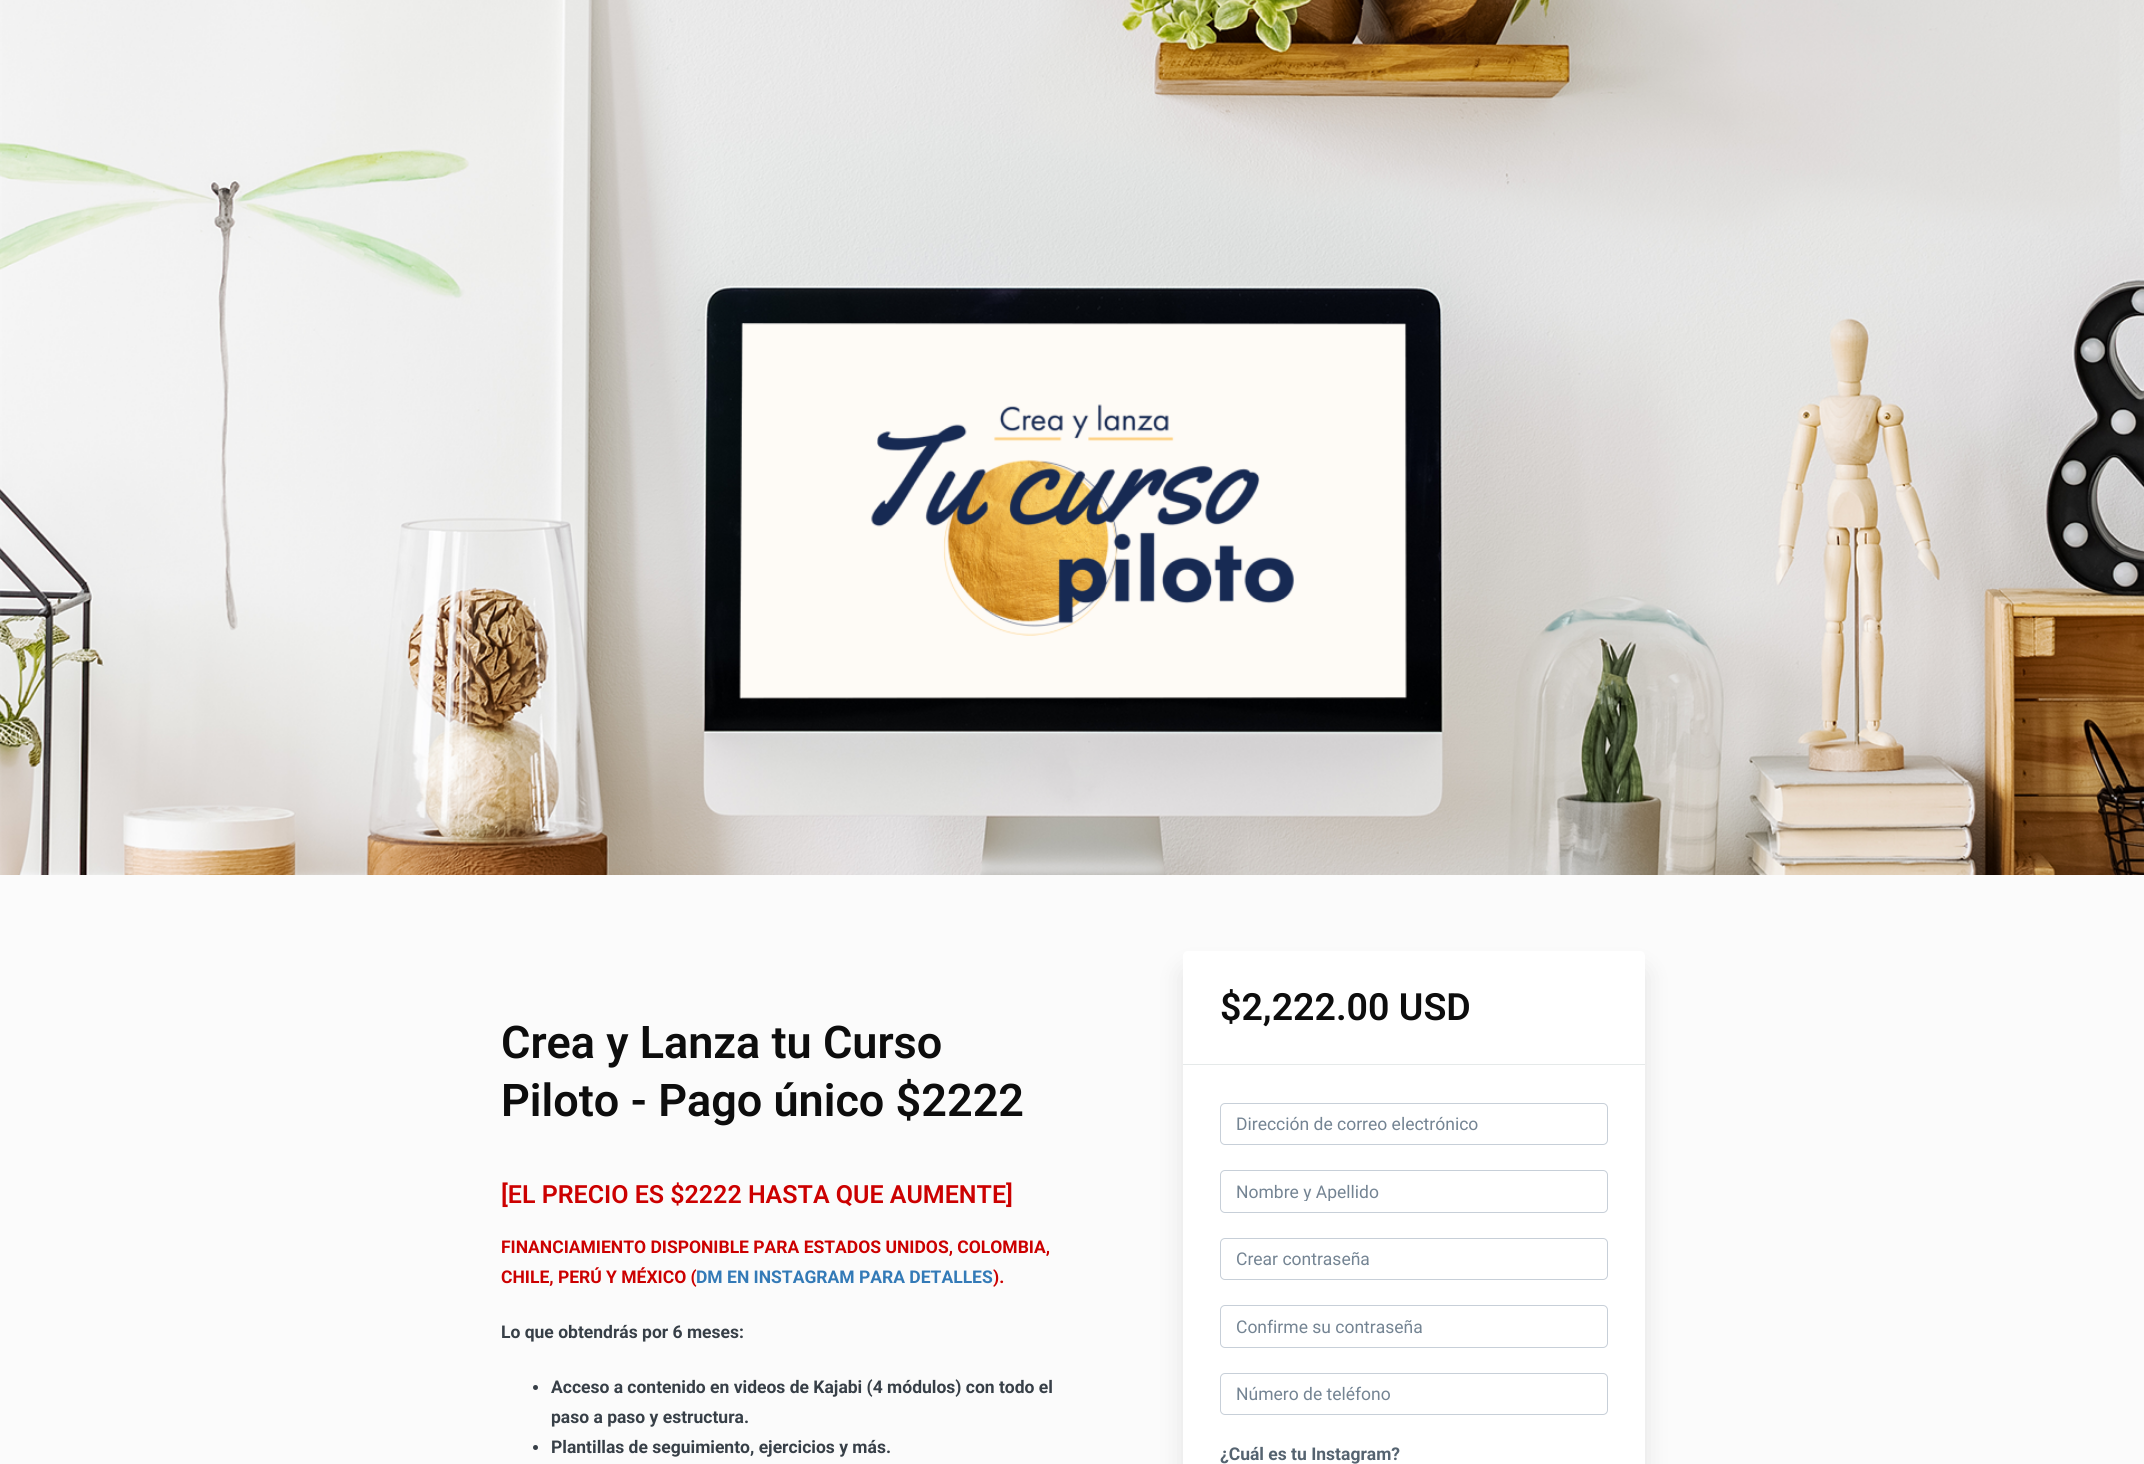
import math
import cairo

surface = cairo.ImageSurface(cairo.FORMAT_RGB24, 2144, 1464)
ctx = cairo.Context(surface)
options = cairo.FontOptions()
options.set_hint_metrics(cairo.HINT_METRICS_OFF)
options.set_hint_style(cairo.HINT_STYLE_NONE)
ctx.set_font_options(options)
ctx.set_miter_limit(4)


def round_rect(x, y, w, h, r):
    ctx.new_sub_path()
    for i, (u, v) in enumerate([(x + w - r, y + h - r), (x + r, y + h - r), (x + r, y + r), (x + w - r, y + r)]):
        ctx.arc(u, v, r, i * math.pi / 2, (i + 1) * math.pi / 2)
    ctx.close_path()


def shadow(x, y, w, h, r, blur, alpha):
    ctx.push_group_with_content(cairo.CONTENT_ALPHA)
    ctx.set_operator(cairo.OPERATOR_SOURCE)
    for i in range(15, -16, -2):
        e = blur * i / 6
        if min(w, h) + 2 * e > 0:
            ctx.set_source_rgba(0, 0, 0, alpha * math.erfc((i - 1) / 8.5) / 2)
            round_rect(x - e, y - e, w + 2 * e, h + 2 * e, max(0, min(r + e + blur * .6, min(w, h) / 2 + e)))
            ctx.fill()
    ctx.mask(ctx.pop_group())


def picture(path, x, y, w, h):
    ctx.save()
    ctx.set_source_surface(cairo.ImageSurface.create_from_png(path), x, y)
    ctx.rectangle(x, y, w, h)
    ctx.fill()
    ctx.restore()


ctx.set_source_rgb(0.984, 0.984, 0.984)
ctx.paint()
picture("img1.png", 0, 0, 2144, 875)
ctx.select_font_face("Roboto SemiBold")
ctx.set_font_size(45)
ctx.set_source_rgb(0.051, 0.051, 0.051)
ctx.move_to(501, 1058)
ctx.show_text("Crea y Lanza tu Curso")
ctx.move_to(501, 1116)
ctx.show_text("Piloto - Pago único $2222")
ctx.set_font_size(25)
ctx.set_source_rgb(0.8, 0, 0)
ctx.move_to(501, 1203)
ctx.show_text("[EL PRECIO ES $2222 HASTA QUE AUMENTE]")
ctx.select_font_face("Roboto", cairo.FONT_SLANT_NORMAL, cairo.FONT_WEIGHT_BOLD)
ctx.set_font_size(17.5)
ctx.move_to(501, 1253)
ctx.show_text("FINANCIAMIENTO DISPONIBLE PARA ESTADOS UNIDOS, COLOMBIA,")
ctx.move_to(501, 1283)
ctx.show_text("CHILE, PERÚ Y MÉXICO (")
ctx.set_source_rgb(0.2, 0.478, 0.718)
ctx.move_to(696, 1283)
ctx.show_text("DM EN INSTAGRAM PARA DETALLES")
ctx.set_source_rgb(0.8, 0, 0)
ctx.move_to(993, 1283)
ctx.show_text(").")
ctx.set_source_rgb(0.216, 0.247, 0.278)
ctx.move_to(501, 1338)
ctx.show_text("Lo que obtendrás por 6 meses:")
ctx.new_path()
ctx.arc(535.5, 1387.5, 2.5, 0, 2 * math.pi)
ctx.fill()
ctx.move_to(551, 1393)
ctx.show_text("Acceso a contenido en videos de Kajabi (4 módulos) con todo el")
ctx.move_to(551, 1423)
ctx.show_text("paso a paso y estructura.")
ctx.new_path()
ctx.arc(535.5, 1447.5, 2.5, 0, 2 * math.pi)
ctx.fill()
ctx.move_to(551, 1453)
ctx.show_text("Plantillas de seguimiento, ejercicios y más.")
ctx.set_source_rgb(0, 0, 0)
shadow(1183, 970, 462, 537, 5, 12.5, 0.1)
ctx.set_source_rgb(1, 1, 1)
round_rect(1183, 951, 462, 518, 5)
ctx.fill()
ctx.set_source_rgb(0.898, 0.914, 0.914)
ctx.rectangle(1183, 1064, 462, 1)
ctx.fill()
ctx.select_font_face("Roboto SemiBold")
ctx.set_font_size(37.5)
ctx.set_source_rgb(0.051, 0.051, 0.051)
ctx.move_to(1220, 1020)
ctx.show_text("$2,222.00 USD")
round_rect(1220.5, 1103.5, 387, 41, 4.5)
ctx.set_source_rgb(0.78, 0.812, 0.847)
ctx.set_line_width(1)
ctx.stroke()
ctx.select_font_face("Roboto")
ctx.set_font_size(17.5)
ctx.set_source_rgb(0.455, 0.518, 0.576)
ctx.move_to(1236, 1130)
ctx.show_text("Dirección de correo electrónico")
round_rect(1220.5, 1170.5, 387, 42, 4.5)
ctx.set_source_rgb(0.78, 0.812, 0.847)
ctx.stroke()
ctx.save()
ctx.rectangle(1236, 1181, 355, 20)
ctx.clip()
ctx.set_source_rgb(0.455, 0.518, 0.576)
ctx.move_to(1236, 1198)
ctx.show_text("Nombre y Apellido")
ctx.restore()
round_rect(1220.5, 1238.5, 387, 41, 4.5)
ctx.stroke()
ctx.set_source_rgb(0.455, 0.518, 0.576)
ctx.move_to(1236, 1265)
ctx.show_text("Crear contraseña")
round_rect(1220.5, 1305.5, 387, 42, 4.5)
ctx.set_source_rgb(0.78, 0.812, 0.847)
ctx.stroke()
ctx.set_source_rgb(0.455, 0.518, 0.576)
ctx.move_to(1236, 1333)
ctx.show_text("Confirme su contraseña")
round_rect(1220.5, 1373.5, 387, 41, 4.5)
ctx.set_source_rgb(0.78, 0.812, 0.847)
ctx.stroke()
ctx.set_source_rgb(0.455, 0.518, 0.576)
ctx.move_to(1236, 1400)
ctx.show_text("Número de teléfono")
ctx.select_font_face("Roboto", cairo.FONT_SLANT_NORMAL, cairo.FONT_WEIGHT_BOLD)
ctx.set_source_rgb(0.333, 0.388, 0.439)
ctx.move_to(1220, 1460)
ctx.show_text("¿Cuál es tu Instagram?")
surface.write_to_png("page.png")
